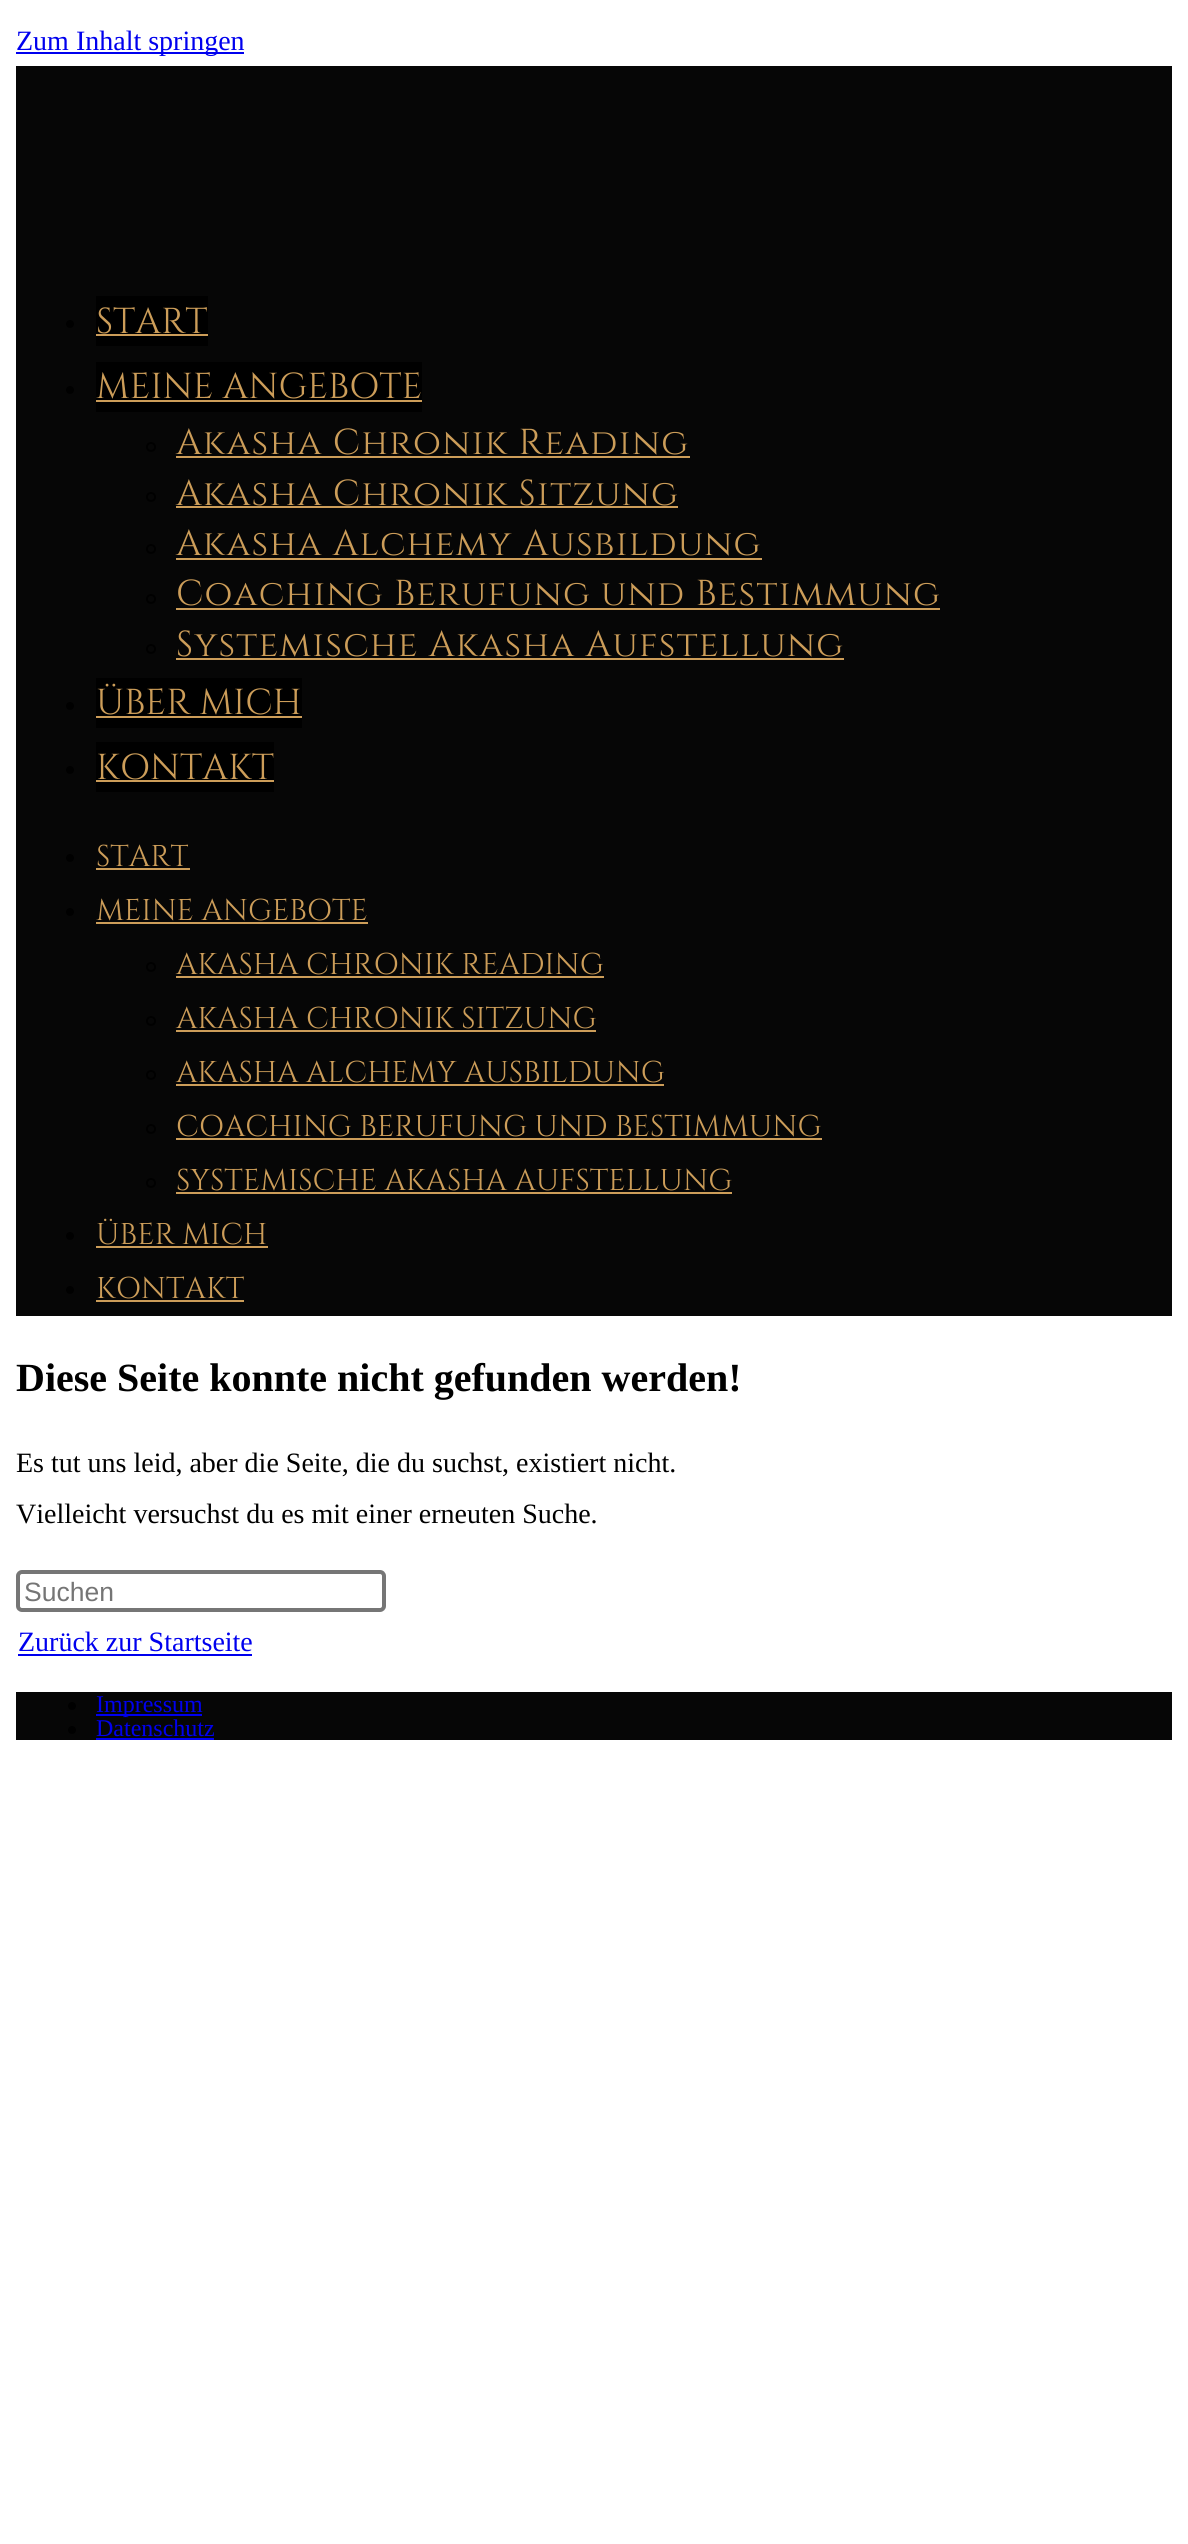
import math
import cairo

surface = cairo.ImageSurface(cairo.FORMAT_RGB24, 1188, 2544)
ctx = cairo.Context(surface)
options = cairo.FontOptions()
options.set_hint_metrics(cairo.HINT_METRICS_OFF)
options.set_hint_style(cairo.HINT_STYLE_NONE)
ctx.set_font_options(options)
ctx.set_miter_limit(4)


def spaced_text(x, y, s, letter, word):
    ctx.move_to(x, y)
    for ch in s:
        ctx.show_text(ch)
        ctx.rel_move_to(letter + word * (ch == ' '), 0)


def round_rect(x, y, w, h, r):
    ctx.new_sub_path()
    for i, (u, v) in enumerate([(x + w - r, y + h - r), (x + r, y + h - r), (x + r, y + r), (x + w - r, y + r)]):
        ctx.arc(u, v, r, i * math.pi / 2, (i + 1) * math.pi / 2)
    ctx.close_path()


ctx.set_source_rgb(1, 1, 1)
ctx.paint()
ctx.set_source_rgb(0, 0, 0.933)
ctx.rectangle(16, 52, 228, 2)
ctx.fill()
ctx.select_font_face("Liberation Serif")
ctx.set_font_size(28)
ctx.move_to(16, 50)
ctx.show_text("Zum Inhalt springen")
ctx.set_source_rgb(0.027, 0.027, 0.027)
ctx.rectangle(16, 66, 1156, 1250)
ctx.fill()
ctx.set_source_rgb(0, 0, 0)
ctx.arc(70, 324, 4, 0, 2 * math.pi)
ctx.fill()
ctx.rectangle(96, 296, 112, 50)
ctx.fill()
ctx.select_font_face("Cinzel")
ctx.set_font_size(36)
ctx.set_source_rgb(0.8, 0.616, 0.349)
ctx.move_to(96, 333)
ctx.show_text("START")
ctx.rectangle(96, 334, 112, 2)
ctx.fill()
ctx.set_source_rgb(0, 0, 0)
ctx.arc(70, 390, 4, 0, 2 * math.pi)
ctx.fill()
ctx.rectangle(96, 362, 326, 50)
ctx.fill()
ctx.set_source_rgb(0.8, 0.616, 0.349)
ctx.move_to(96, 398)
ctx.show_text("MEINE ANGEBOTE")
ctx.rectangle(96, 400, 326, 2)
ctx.fill()
ctx.arc(151, 447, 4, 0, 2 * math.pi)
ctx.set_source_rgb(0, 0, 0)
ctx.stroke()
ctx.set_source_rgb(0.8, 0.616, 0.349)
spaced_text(176, 454, "Akasha Chronik Reading", 1.2, 0)
ctx.rectangle(176, 456, 514, 2)
ctx.fill()
ctx.arc(151, 497, 4, 0, 2 * math.pi)
ctx.set_source_rgb(0, 0, 0)
ctx.stroke()
ctx.set_source_rgb(0.8, 0.616, 0.349)
spaced_text(176, 505, "Akasha Chronik Sitzung", 1.2, 0)
ctx.rectangle(176, 506, 502, 2)
ctx.fill()
ctx.arc(151, 549, 4, 0, 2 * math.pi)
ctx.set_source_rgb(0, 0, 0)
ctx.stroke()
ctx.set_source_rgb(0.8, 0.616, 0.349)
spaced_text(176, 555, "Akasha Alchemy Ausbildung", 1.2, 0)
ctx.rectangle(176, 558, 586, 2)
ctx.fill()
ctx.arc(151, 599, 4, 0, 2 * math.pi)
ctx.set_source_rgb(0, 0, 0)
ctx.stroke()
ctx.set_source_rgb(0.8, 0.616, 0.349)
spaced_text(176, 605, "Coaching Berufung und Bestimmung", 1.2, 0)
ctx.rectangle(176, 608, 764, 2)
ctx.fill()
ctx.arc(151, 649, 4, 0, 2 * math.pi)
ctx.set_source_rgb(0, 0, 0)
ctx.stroke()
ctx.set_source_rgb(0.8, 0.616, 0.349)
spaced_text(176, 656, "Systemische Akasha Aufstellung", 1.2, 0)
ctx.rectangle(176, 658, 668, 2)
ctx.fill()
ctx.set_source_rgb(0, 0, 0)
ctx.arc(70, 706, 4, 0, 2 * math.pi)
ctx.fill()
ctx.rectangle(96, 678, 206, 50)
ctx.fill()
ctx.set_source_rgb(0.8, 0.616, 0.349)
ctx.move_to(96, 714)
ctx.show_text("ÜBER MICH")
ctx.rectangle(96, 716, 206, 2)
ctx.fill()
ctx.set_source_rgb(0, 0, 0)
ctx.arc(70, 770, 4, 0, 2 * math.pi)
ctx.fill()
ctx.rectangle(96, 742, 178, 50)
ctx.fill()
ctx.set_source_rgb(0.8, 0.616, 0.349)
ctx.move_to(96, 779)
ctx.show_text("KONTAKT")
ctx.rectangle(96, 780, 178, 2)
ctx.fill()
ctx.set_source_rgb(0, 0, 0)
ctx.arc(70, 858, 4, 0, 2 * math.pi)
ctx.fill()
ctx.set_font_size(30)
ctx.set_source_rgb(0.8, 0.616, 0.349)
ctx.move_to(96, 866)
ctx.show_text("START")
ctx.rectangle(96, 868, 94, 2)
ctx.fill()
ctx.set_source_rgb(0, 0, 0)
ctx.arc(70, 912, 4, 0, 2 * math.pi)
ctx.fill()
ctx.set_source_rgb(0.8, 0.616, 0.349)
ctx.move_to(96, 920)
ctx.show_text("MEINE ANGEBOTE")
ctx.rectangle(96, 922, 272, 2)
ctx.fill()
ctx.arc(151, 967, 4, 0, 2 * math.pi)
ctx.set_source_rgb(0, 0, 0)
ctx.stroke()
ctx.set_source_rgb(0.8, 0.616, 0.349)
ctx.move_to(176, 974)
ctx.show_text("AKASHA CHRONIK READING")
ctx.rectangle(176, 976, 428, 2)
ctx.fill()
ctx.arc(151, 1021, 4, 0, 2 * math.pi)
ctx.set_source_rgb(0, 0, 0)
ctx.stroke()
ctx.set_source_rgb(0.8, 0.616, 0.349)
ctx.move_to(176, 1028)
ctx.show_text("AKASHA CHRONIK SITZUNG")
ctx.rectangle(176, 1030, 420, 2)
ctx.fill()
ctx.arc(151, 1075, 4, 0, 2 * math.pi)
ctx.set_source_rgb(0, 0, 0)
ctx.stroke()
ctx.set_source_rgb(0.8, 0.616, 0.349)
ctx.move_to(176, 1082)
ctx.show_text("AKASHA ALCHEMY AUSBILDUNG")
ctx.rectangle(176, 1084, 488, 2)
ctx.fill()
ctx.arc(151, 1129, 4, 0, 2 * math.pi)
ctx.set_source_rgb(0, 0, 0)
ctx.stroke()
ctx.set_source_rgb(0.8, 0.616, 0.349)
ctx.move_to(176, 1136)
ctx.show_text("COACHING BERUFUNG UND BESTIMMUNG")
ctx.rectangle(176, 1138, 646, 2)
ctx.fill()
ctx.arc(151, 1183, 4, 0, 2 * math.pi)
ctx.set_source_rgb(0, 0, 0)
ctx.stroke()
ctx.set_source_rgb(0.8, 0.616, 0.349)
ctx.move_to(176, 1190)
ctx.show_text("SYSTEMISCHE AKASHA AUFSTELLUNG")
ctx.rectangle(176, 1192, 556, 2)
ctx.fill()
ctx.set_source_rgb(0, 0, 0)
ctx.arc(70, 1236, 4, 0, 2 * math.pi)
ctx.fill()
ctx.set_source_rgb(0.8, 0.616, 0.349)
ctx.move_to(96, 1244)
ctx.show_text("ÜBER MICH")
ctx.rectangle(96, 1246, 172, 2)
ctx.fill()
ctx.set_source_rgb(0, 0, 0)
ctx.arc(70, 1290, 4, 0, 2 * math.pi)
ctx.fill()
ctx.set_source_rgb(0.8, 0.616, 0.349)
ctx.move_to(96, 1298)
ctx.show_text("KONTAKT")
ctx.rectangle(96, 1300, 148, 2)
ctx.fill()
ctx.select_font_face("Liberation Serif", cairo.FONT_SLANT_NORMAL, cairo.FONT_WEIGHT_BOLD)
ctx.set_font_size(40)
ctx.set_source_rgb(0, 0, 0)
ctx.move_to(16, 1391)
ctx.show_text("Diese Seite konnte nicht gefunden werden!")
ctx.select_font_face("Liberation Serif")
ctx.set_font_size(28)
ctx.move_to(16, 1472)
ctx.show_text("Es tut uns leid, aber die Seite, die du suchst, existiert nicht.")
ctx.move_to(16, 1523)
ctx.show_text("Vielleicht versuchst du es mit einer erneuten Suche.")
round_rect(18, 1572, 366, 38, 4)
ctx.set_source_rgb(0.463, 0.463, 0.463)
ctx.set_line_width(4)
ctx.stroke()
ctx.select_font_face("Liberation Sans")
ctx.set_font_size(26.5)
ctx.set_source_rgb(0.459, 0.459, 0.459)
ctx.move_to(24, 1601)
ctx.show_text("Suchen")
ctx.select_font_face("Liberation Serif")
ctx.set_font_size(28)
ctx.set_source_rgb(0, 0, 0.933)
ctx.move_to(18, 1651)
ctx.show_text("Zurück zur Startseite")
ctx.rectangle(18, 1654, 234, 2)
ctx.fill()
ctx.set_source_rgb(0.027, 0.027, 0.027)
ctx.rectangle(16, 1692, 1156, 48)
ctx.fill()
ctx.set_source_rgb(0, 0, 0)
ctx.arc(72, 1706, 4, 0, 2 * math.pi)
ctx.fill()
ctx.set_source_rgb(0, 0, 0.933)
ctx.rectangle(96, 1714, 106, 2)
ctx.fill()
ctx.set_font_size(24)
ctx.move_to(96, 1712)
ctx.show_text("Impressum")
ctx.set_source_rgb(0, 0, 0)
ctx.new_path()
ctx.arc(72, 1730, 4, 0, 2 * math.pi)
ctx.fill()
ctx.set_source_rgb(0, 0, 0.933)
ctx.move_to(96, 1736)
ctx.show_text("Datenschutz")
ctx.rectangle(96, 1738, 118, 2)
ctx.fill()
surface.write_to_png("page.png")
